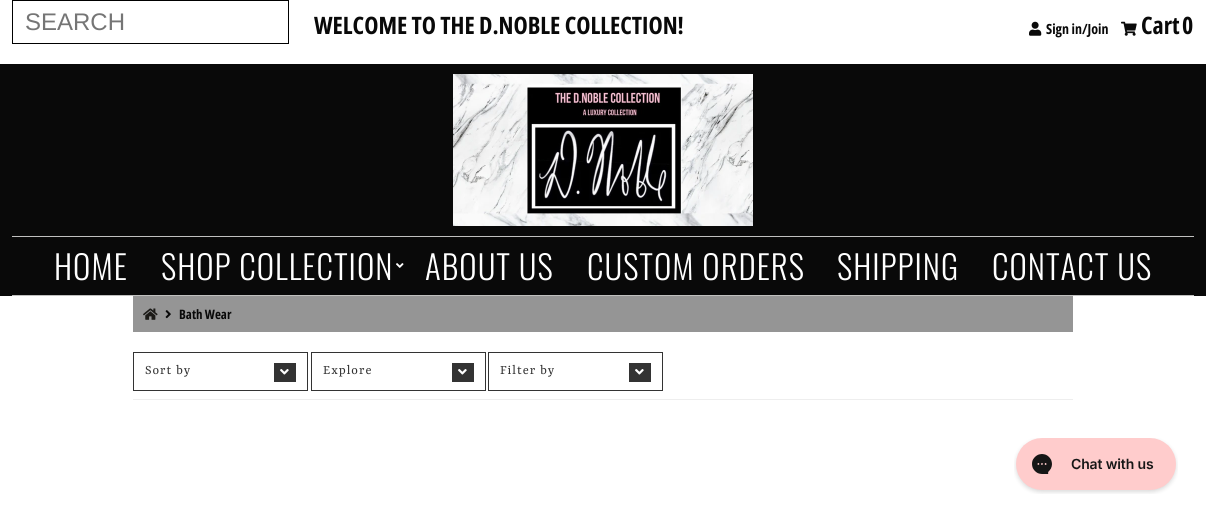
import math
import cairo

surface = cairo.ImageSurface(cairo.FORMAT_RGB24, 1206, 517)
ctx = cairo.Context(surface)
options = cairo.FontOptions()
options.set_hint_metrics(cairo.HINT_METRICS_OFF)
options.set_hint_style(cairo.HINT_STYLE_NONE)
ctx.set_font_options(options)
ctx.set_miter_limit(4)


def spaced_text(x, y, s, letter, word):
    ctx.move_to(x, y)
    for ch in s:
        ctx.show_text(ch)
        ctx.rel_move_to(letter + word * (ch == ' '), 0)


def picture(path, x, y, w, h):
    ctx.save()
    ctx.set_source_surface(cairo.ImageSurface.create_from_png(path), x, y)
    ctx.rectangle(x, y, w, h)
    ctx.fill()
    ctx.restore()


ctx.set_source_rgb(1, 1, 1)
ctx.paint()
ctx.rectangle(12.5, 0.5, 276, 43)
ctx.set_source_rgb(0, 0, 0)
ctx.set_line_width(1)
ctx.stroke()
ctx.select_font_face("Liberation Sans")
ctx.set_font_size(24)
ctx.set_source_rgb(0.459, 0.459, 0.459)
ctx.move_to(25, 30)
ctx.show_text("SEARCH")
ctx.select_font_face("Open Sans Condensed", cairo.FONT_SLANT_NORMAL, cairo.FONT_WEIGHT_BOLD)
ctx.set_source_rgb(0.039, 0.039, 0.039)
ctx.move_to(314, 34)
ctx.show_text("WELCOME TO THE D.NOBLE COLLECTION!")
picture("img1.png", 1029, 21, 13, 15)
ctx.set_font_size(14)
ctx.move_to(1046, 34)
ctx.show_text("Sign in/Join")
picture("img2.png", 1121, 21, 16, 15)
ctx.set_font_size(24)
ctx.move_to(1141, 34)
ctx.show_text("Cart")
ctx.move_to(1182, 34)
ctx.show_text("0")
ctx.rectangle(0, 64, 1206, 232)
ctx.fill()
picture("img3.png", 453, 74, 300, 152)
ctx.set_source_rgb(0.753, 0.753, 0.749)
ctx.rectangle(12, 236, 1182, 1)
ctx.fill()
ctx.select_font_face("Oswald Light")
ctx.set_font_size(33)
ctx.set_source_rgb(1, 1, 1)
spaced_text(54, 280, "HOME", 1, 0)
spaced_text(161, 280, "SHOP COLLECTION", 1, 0)
picture("img4.png", 396, 263, 8, 5)
spaced_text(425, 280, "ABOUT US", 1, 0)
spaced_text(587, 280, "CUSTOM ORDERS", 1, 0)
spaced_text(837, 280, "SHIPPING", 1, 0)
spaced_text(992, 280, "CONTACT US", 1, 0)
ctx.set_source_rgb(0.753, 0.753, 0.749)
ctx.rectangle(12, 295, 1182, 1)
ctx.fill()
ctx.set_source_rgb(0.584, 0.584, 0.584)
ctx.rectangle(133, 296, 940, 36)
ctx.fill()
picture("img5.png", 143, 308, 15, 12)
picture("img6.png", 165, 310, 6, 9)
ctx.select_font_face("Open Sans Condensed", cairo.FONT_SLANT_NORMAL, cairo.FONT_WEIGHT_BOLD)
ctx.set_font_size(13)
ctx.set_source_rgb(0.039, 0.039, 0.039)
ctx.move_to(179, 319)
ctx.show_text("Bath Wear")
ctx.set_source_rgb(0.933, 0.933, 0.933)
ctx.rectangle(133, 399, 940, 1)
ctx.fill()
ctx.rectangle(133.5, 352.5, 174, 38)
ctx.set_source_rgb(0.2, 0.2, 0.2)
ctx.stroke()
ctx.select_font_face("Rasa")
ctx.set_font_size(14)
spaced_text(145, 374, "Sort by", 1, 0)
ctx.rectangle(274, 363, 22, 19)
ctx.fill()
picture("img7.png", 280, 369, 9, 6)
ctx.rectangle(311.5, 352.5, 174, 38)
ctx.stroke()
spaced_text(323, 374, "Explore", 1, 0)
ctx.rectangle(452, 363, 22, 19)
ctx.fill()
picture("img7.png", 458, 369, 9, 6)
ctx.rectangle(488.5, 352.5, 174, 38)
ctx.stroke()
spaced_text(500, 374, "Filter by", 1, 0)
ctx.rectangle(629, 363, 22, 19)
ctx.fill()
picture("img7.png", 635, 369, 9, 6)
picture("img8.png", 1014, 438, 164, 56)
surface.write_to_png("page.png")
